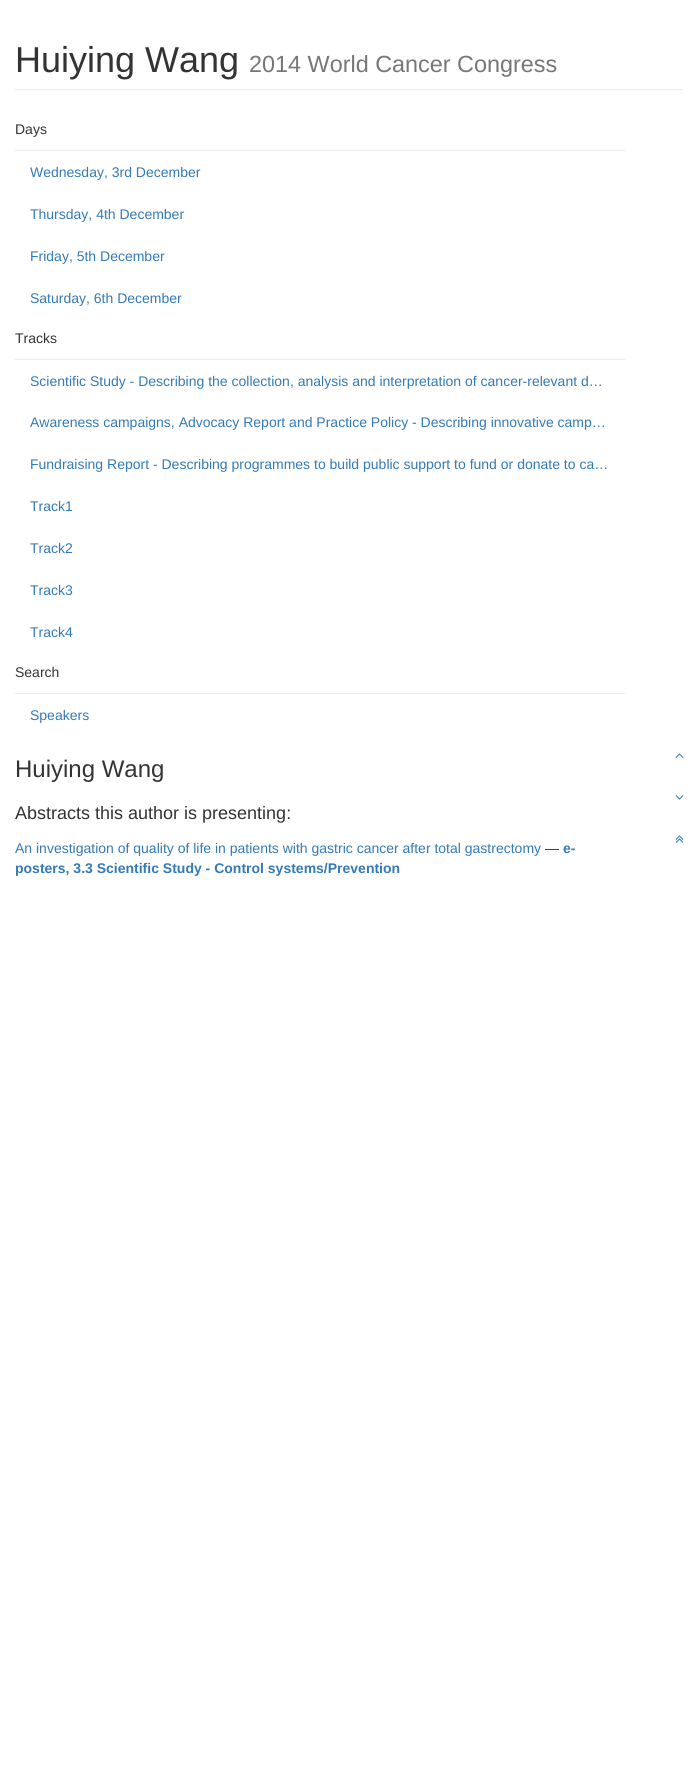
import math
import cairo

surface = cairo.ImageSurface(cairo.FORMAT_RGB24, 698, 1769)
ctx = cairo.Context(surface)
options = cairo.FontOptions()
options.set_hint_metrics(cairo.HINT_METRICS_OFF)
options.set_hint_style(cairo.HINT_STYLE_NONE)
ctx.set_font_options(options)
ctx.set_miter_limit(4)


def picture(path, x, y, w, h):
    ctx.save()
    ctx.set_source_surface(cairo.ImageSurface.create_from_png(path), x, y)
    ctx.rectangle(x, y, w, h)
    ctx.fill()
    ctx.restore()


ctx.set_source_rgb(1, 1, 1)
ctx.paint()
ctx.set_source_rgb(0.933, 0.933, 0.933)
ctx.rectangle(15, 89, 668, 1)
ctx.fill()
ctx.select_font_face("Liberation Sans")
ctx.set_font_size(36)
ctx.set_source_rgb(0.2, 0.2, 0.2)
ctx.move_to(15, 72)
ctx.show_text("Huiying Wang")
ctx.set_font_size(23.4)
ctx.set_source_rgb(0.467, 0.467, 0.467)
ctx.move_to(249, 72)
ctx.show_text("2014 World Cancer Congress")
ctx.set_source_rgb(0.933, 0.933, 0.933)
ctx.rectangle(15, 150, 610, 1)
ctx.fill()
ctx.set_font_size(14)
ctx.set_source_rgb(0.2, 0.2, 0.2)
ctx.move_to(15, 134)
ctx.show_text("Days")
ctx.set_source_rgb(0.2, 0.478, 0.718)
ctx.move_to(30, 177)
ctx.show_text("Wednesday, 3rd December")
ctx.move_to(30, 219)
ctx.show_text("Thursday, 4th December")
ctx.move_to(30, 261)
ctx.show_text("Friday, 5th December")
ctx.move_to(30, 303)
ctx.show_text("Saturday, 6th December")
ctx.set_source_rgb(0.933, 0.933, 0.933)
ctx.rectangle(15, 359, 610, 1)
ctx.fill()
ctx.set_source_rgb(0.2, 0.2, 0.2)
ctx.move_to(15, 343)
ctx.show_text("Tracks")
ctx.set_source_rgb(0.2, 0.478, 0.718)
ctx.move_to(30, 386)
ctx.show_text("Scientific Study - Describing the collection, analysis and interpretation of cancer-relevant d…")
ctx.move_to(30, 427)
ctx.show_text("Awareness campaigns, Advocacy Report and Practice Policy - Describing innovative camp…")
ctx.move_to(30, 469)
ctx.show_text("Fundraising Report - Describing programmes to build public support to fund or donate to ca…")
ctx.move_to(30, 511)
ctx.show_text("Track1")
ctx.move_to(30, 553)
ctx.show_text("Track2")
ctx.move_to(30, 595)
ctx.show_text("Track3")
ctx.move_to(30, 637)
ctx.show_text("Track4")
ctx.set_source_rgb(0.933, 0.933, 0.933)
ctx.rectangle(15, 693, 610, 1)
ctx.fill()
ctx.set_source_rgb(0.2, 0.2, 0.2)
ctx.move_to(15, 677)
ctx.show_text("Search")
ctx.set_source_rgb(0.2, 0.478, 0.718)
ctx.move_to(30, 720)
ctx.show_text("Speakers")
ctx.set_font_size(24)
ctx.set_source_rgb(0.2, 0.2, 0.2)
ctx.move_to(15, 777)
ctx.show_text("Huiying Wang")
ctx.set_font_size(18)
ctx.move_to(15, 819)
ctx.show_text("Abstracts this author is presenting:")
ctx.set_font_size(14)
ctx.set_source_rgb(0.2, 0.478, 0.718)
ctx.move_to(15, 853)
ctx.show_text("An investigation of quality of life in patients with gastric cancer after total gastrectomy")
ctx.set_source_rgb(0.2, 0.2, 0.2)
ctx.move_to(545, 853)
ctx.show_text("—")
ctx.select_font_face("Liberation Sans", cairo.FONT_SLANT_NORMAL, cairo.FONT_WEIGHT_BOLD)
ctx.set_source_rgb(0.2, 0.478, 0.718)
ctx.move_to(563, 853)
ctx.show_text("e-")
ctx.move_to(15, 873)
ctx.show_text("posters, 3.3 Scientific Study - Control systems/Prevention")
picture("img1.png", 675, 753, 9, 5)
picture("img2.png", 675, 795, 9, 5)
picture("img3.png", 675, 835, 9, 8)
surface.write_to_png("page.png")
